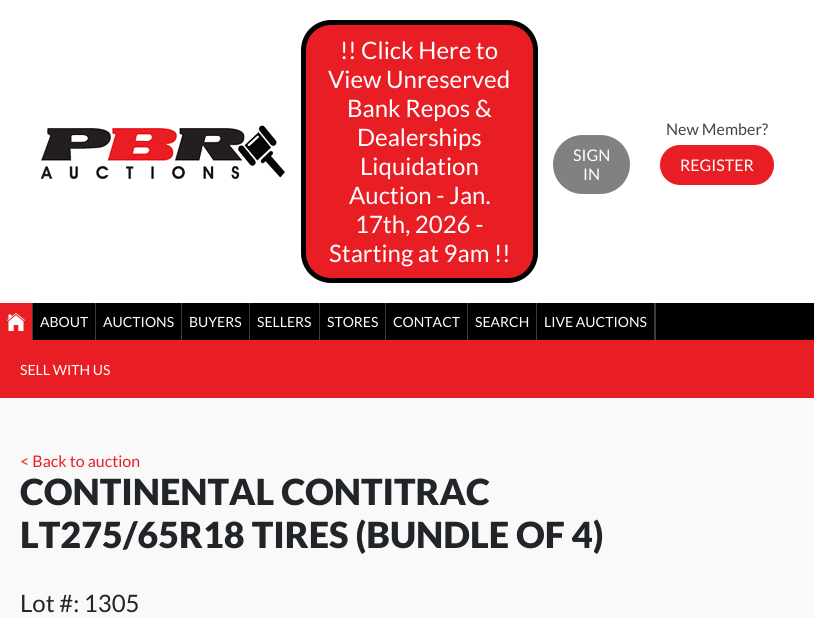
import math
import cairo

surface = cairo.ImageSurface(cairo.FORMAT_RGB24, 814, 618)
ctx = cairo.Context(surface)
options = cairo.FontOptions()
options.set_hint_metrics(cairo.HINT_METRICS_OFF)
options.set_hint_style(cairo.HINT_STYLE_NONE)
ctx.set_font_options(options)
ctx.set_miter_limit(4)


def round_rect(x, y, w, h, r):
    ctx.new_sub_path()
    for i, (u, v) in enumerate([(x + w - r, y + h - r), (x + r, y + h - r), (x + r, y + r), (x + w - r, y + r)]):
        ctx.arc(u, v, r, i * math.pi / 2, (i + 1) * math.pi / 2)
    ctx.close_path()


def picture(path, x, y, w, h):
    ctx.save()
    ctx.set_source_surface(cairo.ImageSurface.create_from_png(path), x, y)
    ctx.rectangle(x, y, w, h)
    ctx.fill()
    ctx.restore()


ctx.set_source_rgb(0.976, 0.976, 0.976)
ctx.paint()
ctx.set_source_rgb(1, 1, 1)
ctx.rectangle(0, 0, 814, 303)
ctx.fill()
picture("img1.png", 40, 125, 245, 54)
ctx.set_source_rgb(0.914, 0.118, 0.141)
round_rect(303.5, 22.5, 232, 258, 27.5)
ctx.fill_preserve()
ctx.set_source_rgb(0, 0, 0)
ctx.set_line_width(5)
ctx.stroke()
ctx.select_font_face("Lato")
ctx.set_font_size(24)
ctx.set_source_rgb(1, 1, 1)
ctx.move_to(340, 59)
ctx.show_text("!! Click Here to")
ctx.move_to(328, 88)
ctx.show_text("View Unreserved")
ctx.move_to(347, 117)
ctx.show_text("Bank Repos &")
ctx.move_to(357, 146)
ctx.show_text("Dealerships")
ctx.move_to(360, 175)
ctx.show_text("Liquidation")
ctx.move_to(349, 204)
ctx.show_text("Auction - Jan.")
ctx.move_to(355, 233)
ctx.show_text("17th, 2026 -")
ctx.move_to(329, 262)
ctx.show_text("Starting at 9am !!")
ctx.set_source_rgb(0.506, 0.506, 0.506)
round_rect(553, 135, 77, 59, 29.5)
ctx.fill()
ctx.set_font_size(16)
ctx.set_source_rgb(1, 1, 1)
ctx.move_to(573, 161)
ctx.show_text("SIGN")
ctx.move_to(583, 180)
ctx.show_text("IN")
ctx.set_source_rgb(0.267, 0.267, 0.267)
ctx.move_to(666, 135)
ctx.show_text("New Member?")
ctx.set_source_rgb(0.914, 0.118, 0.141)
round_rect(660, 145, 114, 40, 20)
ctx.fill()
ctx.set_source_rgb(1, 1, 1)
ctx.move_to(680, 171)
ctx.show_text("REGISTER")
ctx.set_source_rgb(0, 0, 0)
ctx.rectangle(33, 303, 781, 37)
ctx.fill()
ctx.set_source_rgb(0.239, 0.239, 0.239)
ctx.rectangle(32, 303, 1, 37)
ctx.fill()
ctx.set_source_rgb(0.914, 0.118, 0.141)
ctx.rectangle(0, 303, 32, 37)
ctx.fill()
picture("img2.png", 7, 313, 18, 18)
ctx.set_source_rgb(0.239, 0.239, 0.239)
ctx.rectangle(95, 303, 1, 37)
ctx.fill()
ctx.set_font_size(14)
ctx.set_source_rgb(1, 1, 1)
ctx.move_to(40, 327)
ctx.show_text("ABOUT")
ctx.set_source_rgb(0.239, 0.239, 0.239)
ctx.rectangle(181, 303, 1, 37)
ctx.fill()
ctx.set_source_rgb(1, 1, 1)
ctx.move_to(103, 327)
ctx.show_text("AUCTIONS")
ctx.set_source_rgb(0.239, 0.239, 0.239)
ctx.rectangle(249, 303, 1, 37)
ctx.fill()
ctx.set_source_rgb(1, 1, 1)
ctx.move_to(189, 327)
ctx.show_text("BUYERS")
ctx.set_source_rgb(0.239, 0.239, 0.239)
ctx.rectangle(319, 303, 1, 37)
ctx.fill()
ctx.set_source_rgb(1, 1, 1)
ctx.move_to(257, 327)
ctx.show_text("SELLERS")
ctx.set_source_rgb(0.239, 0.239, 0.239)
ctx.rectangle(385, 303, 1, 37)
ctx.fill()
ctx.set_source_rgb(1, 1, 1)
ctx.move_to(327, 327)
ctx.show_text("STORES")
ctx.set_source_rgb(0.239, 0.239, 0.239)
ctx.rectangle(467, 303, 1, 37)
ctx.fill()
ctx.set_source_rgb(1, 1, 1)
ctx.move_to(393, 327)
ctx.show_text("CONTACT")
ctx.set_source_rgb(0.239, 0.239, 0.239)
ctx.rectangle(536, 303, 1, 37)
ctx.fill()
ctx.set_source_rgb(1, 1, 1)
ctx.move_to(475, 327)
ctx.show_text("SEARCH")
ctx.set_source_rgb(0.239, 0.239, 0.239)
ctx.rectangle(654, 303, 2, 37)
ctx.fill()
ctx.set_source_rgb(1, 1, 1)
ctx.move_to(544, 327)
ctx.show_text("LIVE AUCTIONS")
ctx.set_source_rgb(0.914, 0.118, 0.141)
ctx.rectangle(0, 340, 814, 58)
ctx.fill()
ctx.set_source_rgb(1, 1, 1)
ctx.move_to(20, 375)
ctx.show_text("SELL WITH US")
ctx.set_font_size(16)
ctx.set_source_rgb(0.914, 0.118, 0.141)
ctx.move_to(20, 467)
ctx.show_text("< Back to auction")
ctx.select_font_face("Lato Black")
ctx.set_font_size(36)
ctx.set_source_rgb(0.129, 0.145, 0.161)
ctx.move_to(20, 505)
ctx.show_text("CONTINENTAL CONTITRAC")
ctx.move_to(20, 548)
ctx.show_text("LT275/65R18 TIRES (BUNDLE OF 4)")
ctx.select_font_face("Lato")
ctx.set_font_size(24)
ctx.move_to(20, 612)
ctx.show_text("Lot #: 1305")
surface.write_to_png("page.png")
